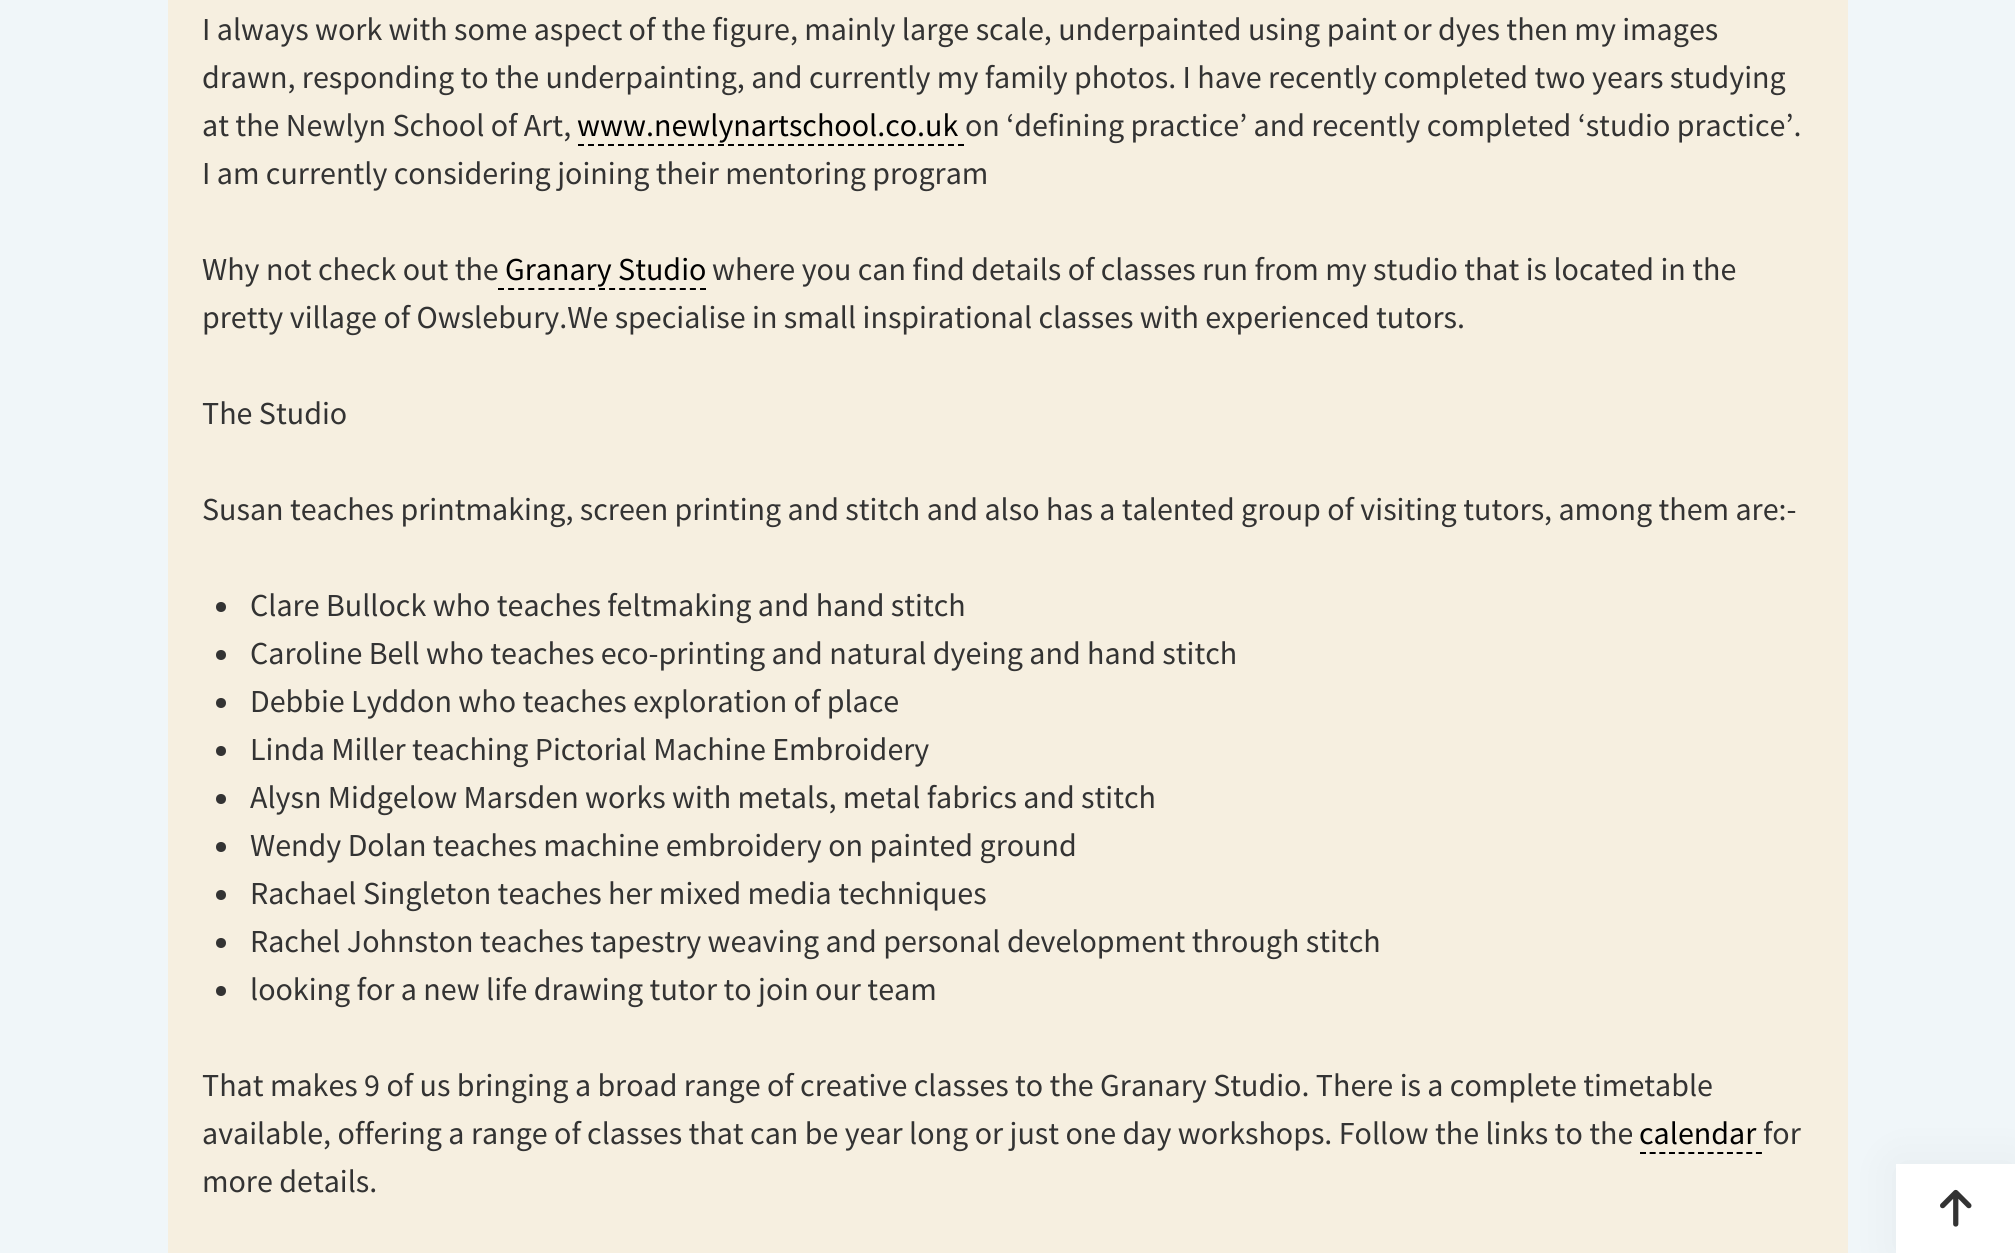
import math
import cairo

surface = cairo.ImageSurface(cairo.FORMAT_RGB24, 2015, 1253)
ctx = cairo.Context(surface)
options = cairo.FontOptions()
options.set_hint_metrics(cairo.HINT_METRICS_OFF)
options.set_hint_style(cairo.HINT_STYLE_NONE)
ctx.set_font_options(options)
ctx.set_miter_limit(4)


def round_rect(x, y, w, h, r):
    ctx.new_sub_path()
    for i, (u, v) in enumerate([(x + w - r, y + h - r), (x + r, y + h - r), (x + r, y + r), (x + w - r, y + r)]):
        ctx.arc(u, v, r, i * math.pi / 2, (i + 1) * math.pi / 2)
    ctx.close_path()


def shadow(x, y, w, h, r, blur, alpha):
    ctx.push_group_with_content(cairo.CONTENT_ALPHA)
    ctx.set_operator(cairo.OPERATOR_SOURCE)
    for i in range(15, -16, -2):
        e = blur * i / 6
        if min(w, h) + 2 * e > 0:
            ctx.set_source_rgba(0, 0, 0, alpha * math.erfc((i - 1) / 8.5) / 2)
            round_rect(x - e, y - e, w + 2 * e, h + 2 * e, max(0, min(r + e + blur * .6, min(w, h) / 2 + e)))
            ctx.fill()
    ctx.mask(ctx.pop_group())


def picture(path, x, y, w, h):
    ctx.save()
    ctx.set_source_surface(cairo.ImageSurface.create_from_png(path), x, y)
    ctx.rectangle(x, y, w, h)
    ctx.fill()
    ctx.restore()


ctx.set_source_rgb(0.941, 0.961, 0.973)
ctx.paint()
ctx.set_source_rgb(0.961, 0.937, 0.878)
ctx.rectangle(168, 0, 1680, 1253)
ctx.fill()
ctx.select_font_face("Source Sans Pro")
ctx.set_font_size(32)
ctx.set_source_rgb(0.2, 0.2, 0.2)
ctx.move_to(202, 40)
ctx.show_text("I always work with some aspect of the figure, mainly large scale, underpainted using paint or dyes then my images")
ctx.move_to(202, 88)
ctx.show_text("drawn, responding to the underpainting, and currently my family photos. I have recently completed two years studying")
ctx.move_to(202, 136)
ctx.show_text("at the Newlyn School of Art,")
ctx.set_source_rgb(0, 0, 0)
ctx.move_to(577, 136)
ctx.show_text("www.newlynartschool.co.uk")
ctx.new_path()
ctx.move_to(578, 145)
ctx.line_to(964, 145)
ctx.set_dash([6, 4])
ctx.stroke()
ctx.set_source_rgb(0.2, 0.2, 0.2)
ctx.move_to(965, 136)
ctx.show_text("on ‘defining practice’ and recently completed ‘studio practice’.")
ctx.move_to(202, 184)
ctx.show_text("I am currently considering joining their mentoring program")
ctx.move_to(202, 280)
ctx.show_text("Why not check out the")
ctx.set_source_rgb(0, 0, 0)
ctx.move_to(505, 280)
ctx.show_text("Granary Studio")
ctx.new_path()
ctx.move_to(498, 289)
ctx.line_to(706, 289)
ctx.set_dash([6, 4.1])
ctx.stroke()
ctx.set_source_rgb(0.2, 0.2, 0.2)
ctx.move_to(712, 280)
ctx.show_text("where you can find details of classes run from my studio that is located in the")
ctx.move_to(202, 328)
ctx.show_text("pretty village of Owslebury.We specialise in small inspirational classes with experienced tutors.")
ctx.move_to(202, 424)
ctx.show_text("The Studio")
ctx.move_to(202, 520)
ctx.show_text("Susan teaches printmaking, screen printing and stitch and also has a talented group of visiting tutors, among them are:-")
ctx.new_path()
ctx.arc(221, 607, 5, 0, 2 * math.pi)
ctx.fill()
ctx.move_to(250, 616)
ctx.show_text("Clare Bullock who teaches feltmaking and hand stitch")
ctx.new_path()
ctx.arc(221, 655, 5, 0, 2 * math.pi)
ctx.fill()
ctx.move_to(250, 664)
ctx.show_text("Caroline Bell who teaches eco-printing and natural dyeing and hand stitch")
ctx.new_path()
ctx.arc(221, 703, 5, 0, 2 * math.pi)
ctx.fill()
ctx.move_to(250, 712)
ctx.show_text("Debbie Lyddon who teaches exploration of place")
ctx.new_path()
ctx.arc(221, 751, 5, 0, 2 * math.pi)
ctx.fill()
ctx.move_to(250, 760)
ctx.show_text("Linda Miller teaching Pictorial Machine Embroidery")
ctx.new_path()
ctx.arc(221, 799, 5, 0, 2 * math.pi)
ctx.fill()
ctx.move_to(250, 808)
ctx.show_text("Alysn Midgelow Marsden works with metals, metal fabrics and stitch")
ctx.new_path()
ctx.arc(221, 847, 5, 0, 2 * math.pi)
ctx.fill()
ctx.move_to(250, 856)
ctx.show_text("Wendy Dolan teaches machine embroidery on painted ground")
ctx.new_path()
ctx.arc(221, 895, 5, 0, 2 * math.pi)
ctx.fill()
ctx.move_to(250, 904)
ctx.show_text("Rachael Singleton teaches her mixed media techniques")
ctx.new_path()
ctx.arc(221, 943, 5, 0, 2 * math.pi)
ctx.fill()
ctx.move_to(250, 952)
ctx.show_text("Rachel Johnston teaches tapestry weaving and personal development through stitch")
ctx.new_path()
ctx.arc(221, 991, 5, 0, 2 * math.pi)
ctx.fill()
ctx.move_to(250, 1000)
ctx.show_text("looking for a new life drawing tutor to join our team")
ctx.move_to(202, 1096)
ctx.show_text("That makes 9 of us bringing a broad range of creative classes to the Granary Studio. There is a complete timetable")
ctx.move_to(202, 1144)
ctx.show_text("available, offering a range of classes that can be year long or just one day workshops. Follow the links to the")
ctx.set_source_rgb(0, 0, 0)
ctx.move_to(1639, 1144)
ctx.show_text("calendar")
ctx.new_path()
ctx.move_to(1640, 1153)
ctx.line_to(1762, 1153)
ctx.set_dash([6, 3.66])
ctx.stroke()
ctx.set_source_rgb(0.2, 0.2, 0.2)
ctx.move_to(1763, 1144)
ctx.show_text("for")
ctx.move_to(202, 1192)
ctx.show_text("more details.")
ctx.set_source_rgb(0, 0, 0)
shadow(1896, 1164, 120, 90, 0, 24, 0.05)
ctx.set_source_rgb(1, 1, 1)
ctx.rectangle(1896, 1164, 119, 89)
ctx.fill()
picture("img1.png", 1940, 1189, 32, 38)
surface.write_to_png("page.png")
